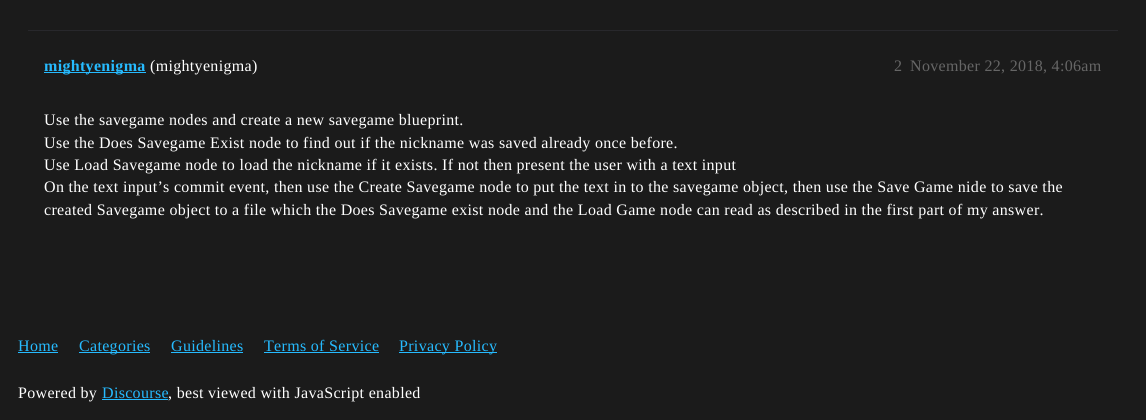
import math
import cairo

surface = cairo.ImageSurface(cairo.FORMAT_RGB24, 1146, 420)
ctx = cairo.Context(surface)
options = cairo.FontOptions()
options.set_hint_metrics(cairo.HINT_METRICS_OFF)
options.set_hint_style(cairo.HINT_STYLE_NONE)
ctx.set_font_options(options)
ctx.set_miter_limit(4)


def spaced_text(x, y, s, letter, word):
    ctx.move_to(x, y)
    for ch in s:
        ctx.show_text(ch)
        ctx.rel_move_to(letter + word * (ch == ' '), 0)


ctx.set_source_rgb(0.106, 0.106, 0.106)
ctx.paint()
ctx.set_source_rgb(0.157, 0.157, 0.173)
ctx.rectangle(28, 30, 1090, 1)
ctx.fill()
ctx.set_source_rgb(0.149, 0.733, 1)
ctx.rectangle(44, 72, 102, 1)
ctx.fill()
ctx.select_font_face("Liberation Serif", cairo.FONT_SLANT_NORMAL, cairo.FONT_WEIGHT_BOLD)
ctx.set_font_size(16)
spaced_text(44, 71, "mightyenigma", 0.32, 0)
ctx.select_font_face("Liberation Serif")
ctx.set_source_rgb(1, 1, 1)
spaced_text(150, 71, "(mightyenigma)", 0.32, 0)
ctx.set_source_rgb(0.4, 0.4, 0.4)
spaced_text(894, 71, "2", 0.32, 0)
spaced_text(910, 71, "November 22, 2018, 4:06am", 0.32, 0)
ctx.set_source_rgb(1, 1, 1)
spaced_text(44, 125, "Use the savegame nodes and create a new savegame blueprint.", 0.32, 0)
spaced_text(44, 148, "Use the Does Savegame Exist node to find out if the nickname was saved already once before.", 0.32, 0)
spaced_text(44, 170, "Use Load Savegame node to load the nickname if it exists. If not then present the user with a text input", 0.32, 0)
spaced_text(44, 192, "On the text input’s commit event, then use the Create Savegame node to put the text in to the savegame object, then use the Save Game nide to save the", 0.32, 0)
spaced_text(44, 215, "created Savegame object to a file which the Does Savegame exist node and the Load Game node can read as described in the first part of my answer.", 0.32, 0)
ctx.set_source_rgb(0.149, 0.733, 1)
spaced_text(18, 351, "Home", 0.32, 0)
ctx.rectangle(18, 352, 40, 1)
ctx.fill()
ctx.rectangle(79, 352, 71, 1)
ctx.fill()
spaced_text(79, 351, "Categories", 0.32, 0)
spaced_text(171, 351, "Guidelines", 0.32, 0)
ctx.rectangle(171, 352, 72, 1)
ctx.fill()
spaced_text(264, 351, "Terms of Service", 0.32, 0)
ctx.rectangle(264, 352, 115, 1)
ctx.fill()
ctx.rectangle(399, 352, 98, 1)
ctx.fill()
spaced_text(399, 351, "Privacy Policy", 0.32, 0)
ctx.set_source_rgb(1, 1, 1)
spaced_text(18, 398, "Powered by", 0.32, 0)
ctx.set_source_rgb(0.149, 0.733, 1)
spaced_text(102, 398, "Discourse", 0.32, 0)
ctx.rectangle(102, 399, 66, 1)
ctx.fill()
ctx.set_source_rgb(1, 1, 1)
spaced_text(168, 398, ", best viewed with JavaScript enabled", 0.32, 0)
surface.write_to_png("page.png")
